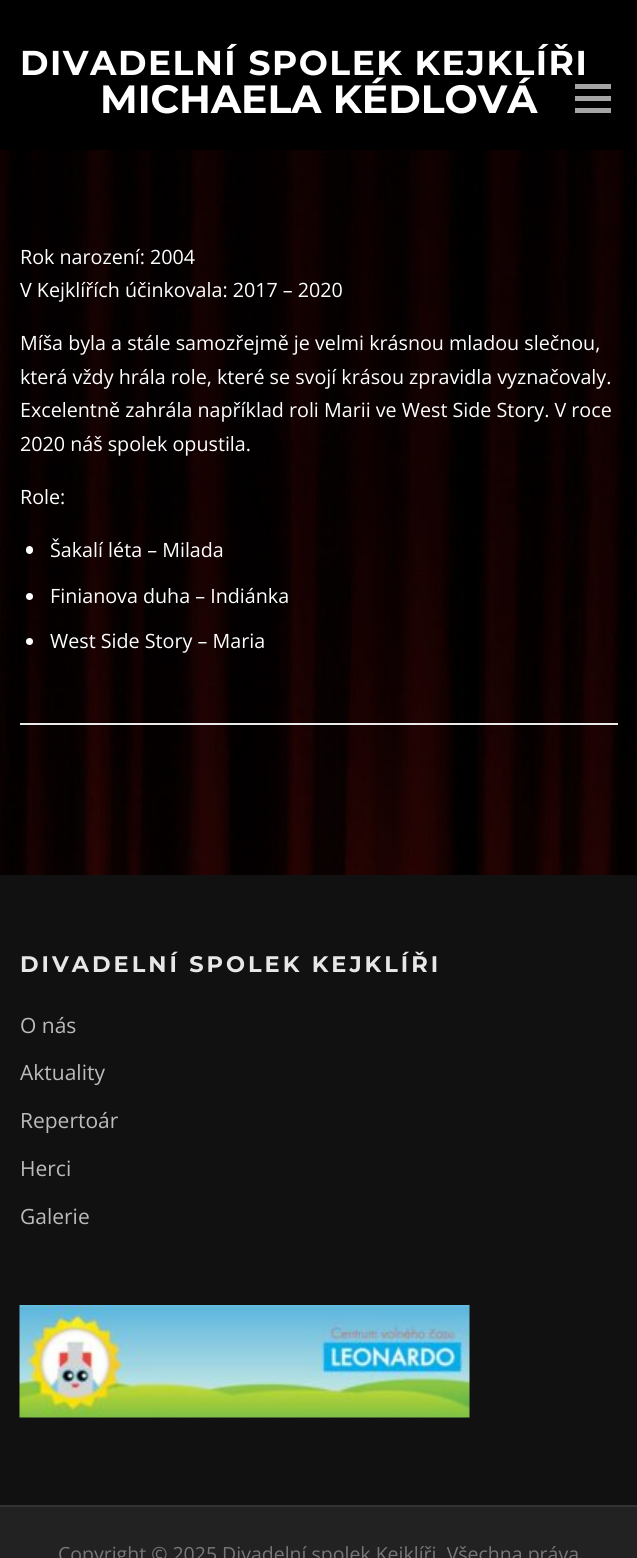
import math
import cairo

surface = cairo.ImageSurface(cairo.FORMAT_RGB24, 637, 1558)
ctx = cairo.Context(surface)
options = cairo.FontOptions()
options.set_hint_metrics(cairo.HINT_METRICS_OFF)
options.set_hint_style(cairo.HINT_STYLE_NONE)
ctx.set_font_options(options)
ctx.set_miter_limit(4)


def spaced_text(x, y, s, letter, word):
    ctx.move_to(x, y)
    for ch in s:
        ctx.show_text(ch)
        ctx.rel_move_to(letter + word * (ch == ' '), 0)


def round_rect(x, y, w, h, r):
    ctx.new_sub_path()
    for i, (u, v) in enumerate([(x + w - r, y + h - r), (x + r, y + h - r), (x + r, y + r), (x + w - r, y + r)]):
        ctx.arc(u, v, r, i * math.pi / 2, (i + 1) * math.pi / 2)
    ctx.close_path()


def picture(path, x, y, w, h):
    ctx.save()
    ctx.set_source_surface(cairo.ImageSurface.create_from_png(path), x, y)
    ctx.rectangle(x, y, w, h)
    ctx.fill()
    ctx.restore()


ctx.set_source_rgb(1, 1, 1)
ctx.paint()
picture("img1.png", 0, 150, 637, 725)
ctx.set_source_rgb(0, 0, 0)
ctx.rectangle(0, 0, 637, 150)
ctx.fill()
ctx.select_font_face("Montserrat", cairo.FONT_SLANT_NORMAL, cairo.FONT_WEIGHT_BOLD)
ctx.set_font_size(34.5)
ctx.set_source_rgb(1, 1, 1)
spaced_text(20, 75, "DIVADELNÍ SPOLEK KEJKLÍŘI", 1.5, 0)
ctx.set_source_rgb(0.647, 0.647, 0.647)
ctx.rectangle(575, 96, 36, 5)
ctx.fill()
ctx.rectangle(575, 84, 36, 5)
ctx.fill()
ctx.rectangle(575, 108, 36, 5)
ctx.fill()
ctx.set_font_size(39.4)
ctx.set_source_rgb(1, 1, 1)
ctx.move_to(100, 113)
ctx.show_text("MICHAELA KÉDLOVÁ")
ctx.select_font_face("Open Sans")
ctx.set_font_size(19.7)
ctx.move_to(20, 264)
ctx.show_text("Rok narození: 2004")
ctx.move_to(20, 297)
ctx.show_text("V Kejklířích účinkovala: 2017 – 2020")
ctx.move_to(20, 350)
ctx.show_text("Míša byla a stále samozřejmě je velmi krásnou mladou slečnou,")
ctx.move_to(20, 384)
ctx.show_text("která vždy hrála role, které se svojí krásou zpravidla vyznačovaly.")
ctx.move_to(20, 417)
ctx.show_text("Excelentně zahrála například roli Marii ve West Side Story. V roce")
ctx.move_to(20, 451)
ctx.show_text("2020 náš spolek opustila.")
ctx.move_to(20, 504)
ctx.show_text("Role:")
round_rect(26, 546, 7, 8, 3.5)
ctx.fill()
ctx.move_to(50, 557)
ctx.show_text("Šakalí léta – Milada")
ctx.new_path()
ctx.arc(29.5, 596.5, 3.5, 0, 2 * math.pi)
ctx.fill()
ctx.move_to(50, 603)
ctx.show_text("Finianova duha – Indiánka")
ctx.new_path()
ctx.arc(29.5, 641.5, 3.5, 0, 2 * math.pi)
ctx.fill()
ctx.move_to(50, 648)
ctx.show_text("West Side Story – Maria")
ctx.set_source_rgb(0.914, 0.914, 0.914)
ctx.rectangle(20, 723, 598, 2)
ctx.fill()
ctx.set_source_rgb(0.067, 0.067, 0.067)
ctx.rectangle(0, 875, 637, 630)
ctx.fill()
ctx.select_font_face("Montserrat", cairo.FONT_SLANT_NORMAL, cairo.FONT_WEIGHT_BOLD)
ctx.set_font_size(22.5)
ctx.set_source_rgb(0.906, 0.906, 0.906)
spaced_text(20, 972, "DIVADELNÍ SPOLEK KEJKLÍŘI", 3, 0)
ctx.select_font_face("Open Sans")
ctx.set_font_size(21)
ctx.set_source_rgb(0.733, 0.733, 0.733)
ctx.move_to(20, 1033)
ctx.show_text("O nás")
ctx.move_to(20, 1080)
ctx.show_text("Aktuality")
ctx.move_to(20, 1128)
ctx.show_text("Repertoár")
ctx.move_to(20, 1176)
ctx.show_text("Herci")
ctx.move_to(20, 1224)
ctx.show_text("Galerie")
picture("img2.png", 19, 1305, 451, 113)
ctx.set_source_rgb(0.133, 0.133, 0.133)
ctx.rectangle(0, 1507, 637, 51)
ctx.fill()
ctx.set_source_rgb(0.2, 0.2, 0.2)
ctx.rectangle(0, 1505, 637, 2)
ctx.fill()
ctx.set_font_size(19.5)
ctx.set_source_rgb(0.467, 0.467, 0.467)
ctx.move_to(58, 1561)
ctx.show_text("Copyright © 2025 Divadelní spolek Kejklíři. Všechna práva")
surface.write_to_png("page.png")
